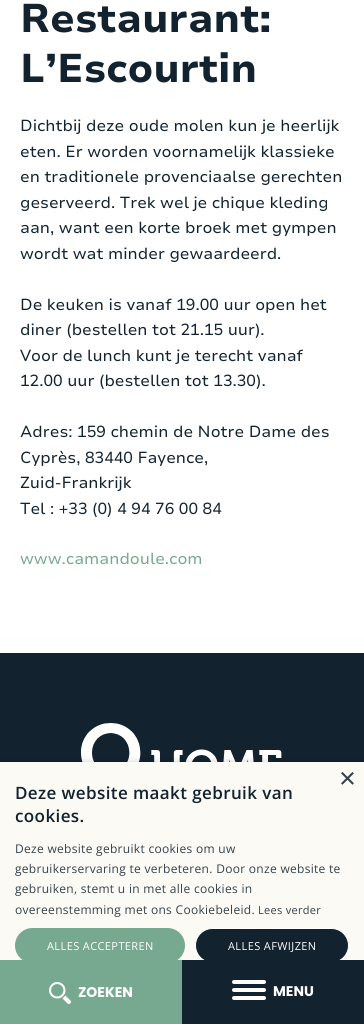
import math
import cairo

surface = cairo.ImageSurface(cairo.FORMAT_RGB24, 364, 1024)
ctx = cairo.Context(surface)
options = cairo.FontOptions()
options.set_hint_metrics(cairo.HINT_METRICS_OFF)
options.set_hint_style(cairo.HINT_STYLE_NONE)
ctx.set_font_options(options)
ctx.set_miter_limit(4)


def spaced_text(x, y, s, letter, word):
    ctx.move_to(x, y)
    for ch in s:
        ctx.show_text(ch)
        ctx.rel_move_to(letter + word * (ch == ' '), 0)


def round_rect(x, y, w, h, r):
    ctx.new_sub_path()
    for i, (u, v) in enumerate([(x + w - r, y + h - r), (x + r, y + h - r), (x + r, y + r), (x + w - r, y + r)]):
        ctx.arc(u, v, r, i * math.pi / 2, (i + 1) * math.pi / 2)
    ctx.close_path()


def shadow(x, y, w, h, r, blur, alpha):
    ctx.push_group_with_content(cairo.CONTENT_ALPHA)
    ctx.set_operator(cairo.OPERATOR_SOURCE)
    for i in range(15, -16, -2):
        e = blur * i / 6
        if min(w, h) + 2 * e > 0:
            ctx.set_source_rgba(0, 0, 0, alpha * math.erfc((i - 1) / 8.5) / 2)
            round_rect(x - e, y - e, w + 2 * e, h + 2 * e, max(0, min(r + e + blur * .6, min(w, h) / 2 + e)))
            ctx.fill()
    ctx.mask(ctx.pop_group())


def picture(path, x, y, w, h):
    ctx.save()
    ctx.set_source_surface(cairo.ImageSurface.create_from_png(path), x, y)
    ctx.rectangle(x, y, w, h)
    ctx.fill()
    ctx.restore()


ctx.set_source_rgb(1, 1, 1)
ctx.paint()
ctx.select_font_face("Nunito Sans ExtraBold")
ctx.set_font_size(40)
ctx.set_source_rgb(0.071, 0.133, 0.18)
ctx.move_to(20, 32)
ctx.show_text("Restaurant:")
ctx.move_to(20, 82)
ctx.show_text("L’Escourtin")
ctx.select_font_face("Nunito Sans")
ctx.set_font_size(16)
ctx.move_to(20, 131)
ctx.show_text("Dichtbij deze oude molen kun je heerlijk")
ctx.move_to(20, 157)
ctx.show_text("eten. Er worden voornamelijk klassieke")
ctx.move_to(20, 182)
ctx.show_text("en traditionele provenciaalse gerechten")
ctx.move_to(20, 208)
ctx.show_text("geserveerd. Trek wel je chique kleding")
ctx.move_to(20, 233)
ctx.show_text("aan, want een korte broek met gympen")
ctx.move_to(20, 259)
ctx.show_text("wordt wat minder gewaardeerd.")
ctx.move_to(20, 310)
ctx.show_text("De keuken is vanaf 19.00 uur open het")
ctx.move_to(20, 335)
ctx.show_text("diner (bestellen tot 21.15 uur).")
ctx.move_to(20, 361)
ctx.show_text("Voor de lunch kunt je terecht vanaf")
ctx.move_to(20, 386)
ctx.show_text("12.00 uur (bestellen tot 13.30).")
ctx.move_to(20, 437)
ctx.show_text("Adres: 159 chemin de Notre Dame des")
ctx.move_to(20, 463)
ctx.show_text("Cyprès, 83440 Fayence,")
ctx.move_to(20, 488)
ctx.show_text("Zuid-Frankrijk")
ctx.move_to(20, 514)
ctx.show_text("Tel : +33 (0) 4 94 76 00 84")
ctx.set_source_rgb(0.463, 0.663, 0.561)
ctx.move_to(20, 564)
ctx.show_text("www.camandoule.com")
ctx.set_source_rgb(0.071, 0.133, 0.18)
ctx.rectangle(0, 653, 364, 109)
ctx.fill()
picture("img1.png", 81, 723, 201, 39)
ctx.set_source_rgb(0, 0, 0)
shadow(1, 764, 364, 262, 0, 4, 0.35)
ctx.set_source_rgb(0.984, 0.98, 0.957)
ctx.rectangle(0, 762, 364, 198)
ctx.fill()
ctx.select_font_face("Liberation Sans")
ctx.set_font_size(29)
ctx.set_source_rgb(0.208, 0.259, 0.298)
ctx.move_to(339, 788)
ctx.show_text("×")
ctx.select_font_face("Open Sans SemiBold")
ctx.set_font_size(17)
ctx.set_source_rgb(0.071, 0.133, 0.18)
spaced_text(15, 799, "Deze website maakt gebruik van", 0.4, 0)
spaced_text(15, 822, "cookies.", 0.4, 0)
ctx.select_font_face("Open Sans")
ctx.set_font_size(12)
ctx.set_source_rgb(0.208, 0.259, 0.298)
spaced_text(15, 853, "Deze website gebruikt cookies om uw", 0.3, 0)
spaced_text(15, 873, "gebruikerservaring te verbeteren. Door onze website te", 0.3, 0)
spaced_text(15, 893, "gebruiken, stemt u in met alle cookies in", 0.3, 0)
spaced_text(15, 914, "overeenstemming met ons Cookiebeleid.", 0.3, 0)
ctx.set_font_size(11)
spaced_text(258, 914, "Lees verder", 0.3, 0)
ctx.set_source_rgb(0.463, 0.663, 0.561)
round_rect(15, 928, 170, 35, 17.5)
ctx.fill()
ctx.set_source_rgb(1, 1, 1)
spaced_text(47, 950, "ALLES ACCEPTEREN", 0.4, 0)
ctx.set_source_rgb(0.071, 0.133, 0.18)
round_rect(195.5, 928.5, 153, 34, 17)
ctx.fill_preserve()
ctx.set_source_rgb(1, 1, 1)
ctx.set_line_width(1)
ctx.stroke()
spaced_text(228, 950, "ALLES AFWIJZEN", 0.4, 0)
ctx.set_source_rgb(0.071, 0.133, 0.18)
ctx.rectangle(182, 960, 182, 64)
ctx.fill()
ctx.set_source_rgb(0.467, 0.663, 0.565)
ctx.rectangle(0, 960, 182, 64)
ctx.fill()
picture("img2.png", 49, 982, 22, 22)
ctx.select_font_face("Poppins", cairo.FONT_SLANT_NORMAL, cairo.FONT_WEIGHT_BOLD)
ctx.set_font_size(14)
ctx.set_source_rgb(1, 1, 1)
ctx.move_to(78, 997)
ctx.show_text("ZOEKEN")
round_rect(232, 980, 34, 4, 2)
ctx.fill()
round_rect(232, 988, 34, 4, 2)
ctx.fill()
round_rect(232, 996, 34, 4, 2)
ctx.fill()
ctx.move_to(273, 996)
ctx.show_text("MENU")
surface.write_to_png("page.png")
